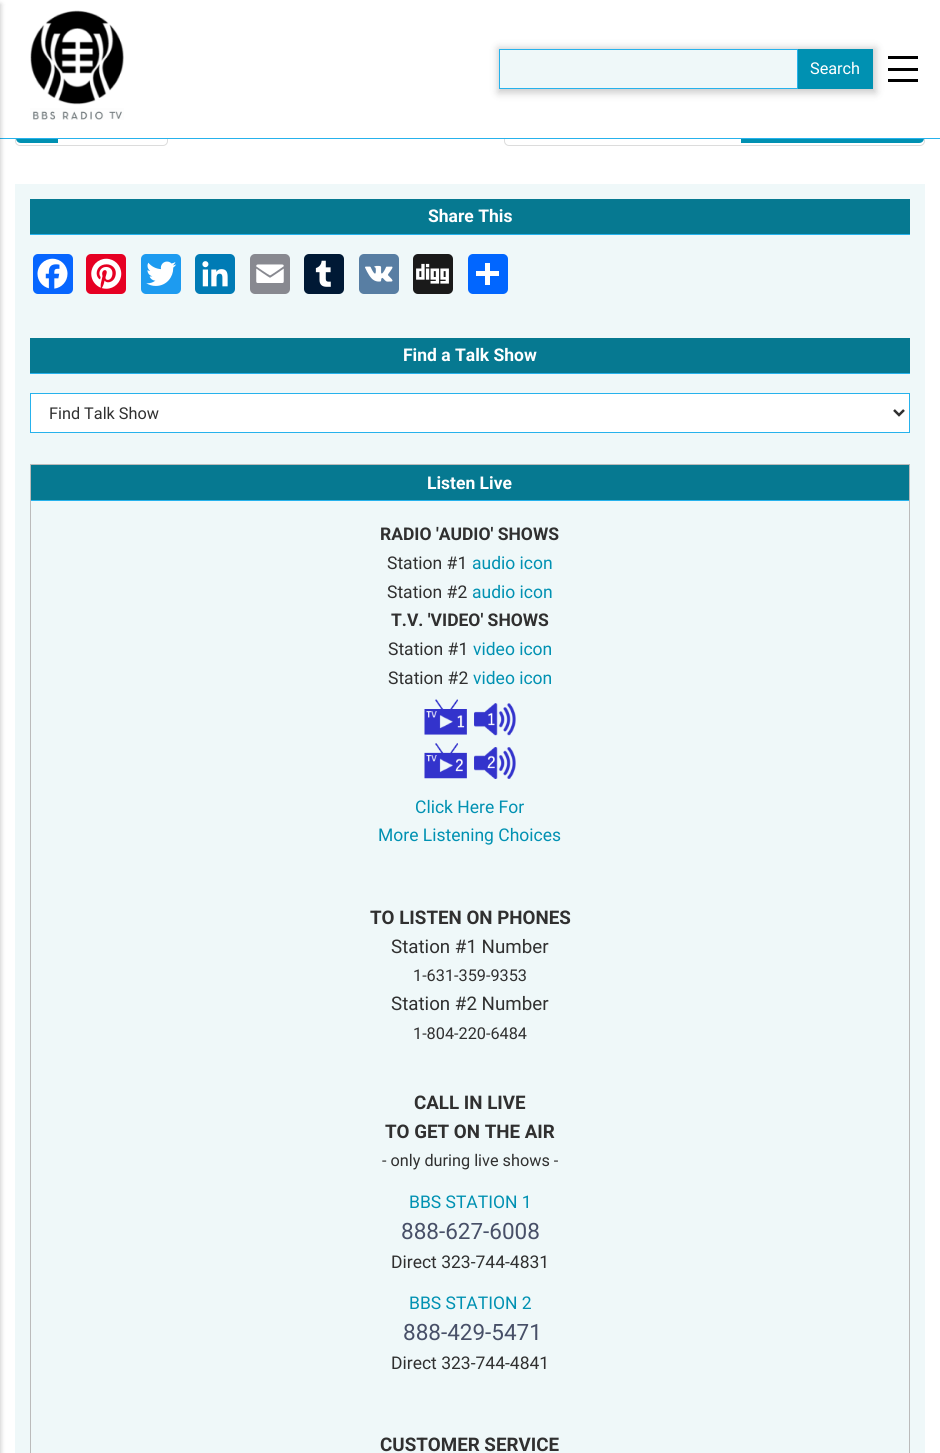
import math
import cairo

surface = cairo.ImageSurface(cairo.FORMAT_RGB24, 940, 1453)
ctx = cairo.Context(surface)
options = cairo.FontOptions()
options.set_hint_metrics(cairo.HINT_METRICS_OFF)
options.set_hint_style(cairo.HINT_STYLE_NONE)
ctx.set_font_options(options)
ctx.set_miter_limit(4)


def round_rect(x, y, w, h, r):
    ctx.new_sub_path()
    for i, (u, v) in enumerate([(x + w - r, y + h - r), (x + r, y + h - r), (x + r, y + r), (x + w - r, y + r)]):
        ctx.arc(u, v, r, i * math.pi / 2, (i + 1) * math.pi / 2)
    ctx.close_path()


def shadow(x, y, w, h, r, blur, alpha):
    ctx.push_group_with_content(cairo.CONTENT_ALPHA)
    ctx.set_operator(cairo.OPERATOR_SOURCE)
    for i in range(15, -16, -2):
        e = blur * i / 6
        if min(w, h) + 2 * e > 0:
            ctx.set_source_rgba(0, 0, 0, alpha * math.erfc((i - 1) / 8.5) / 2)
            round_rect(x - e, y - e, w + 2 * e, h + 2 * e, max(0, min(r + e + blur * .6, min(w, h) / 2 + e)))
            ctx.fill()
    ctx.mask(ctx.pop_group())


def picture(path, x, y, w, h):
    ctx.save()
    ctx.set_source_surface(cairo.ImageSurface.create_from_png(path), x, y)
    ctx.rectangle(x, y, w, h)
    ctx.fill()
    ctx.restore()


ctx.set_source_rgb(1, 1, 1)
ctx.paint()
round_rect(15.5, 115.5, 152, 30, 4.5)
ctx.set_source_rgb(0.863, 0.863, 0.863)
ctx.set_line_width(1)
ctx.stroke()
ctx.set_source_rgb(0, 0.569, 0.698)
ctx.new_path()
ctx.move_to(21, 116)
ctx.line_to(58, 116)
ctx.line_to(58, 143)
ctx.line_to(21, 143)
ctx.curve_to(18, 143, 16, 141, 16, 138)
ctx.line_to(16, 121)
ctx.curve_to(16, 118, 18, 116, 21, 116)
ctx.close_path()
ctx.fill()
round_rect(504.5, 115.5, 420, 30, 4.5)
ctx.set_source_rgb(0.863, 0.863, 0.863)
ctx.stroke()
ctx.set_source_rgb(0, 0.569, 0.698)
ctx.new_path()
ctx.move_to(741, 116)
ctx.line_to(919, 116)
ctx.curve_to(922, 116, 924, 118, 924, 121)
ctx.line_to(924, 138)
ctx.curve_to(924, 141, 922, 143, 919, 143)
ctx.line_to(741, 143)
ctx.close_path()
ctx.fill()
ctx.set_source_rgb(0.149, 0.698, 0.925)
ctx.rectangle(0, 138, 940, 1)
ctx.fill()
ctx.set_source_rgb(0, 0, 0)
shadow(-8, 4, 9, 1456, 0, 2.5, 0.2)
ctx.set_source_rgb(1, 1, 1)
ctx.rectangle(15, 115, 910, 23)
ctx.fill()
picture("img1.png", 30, 10, 94, 110)
ctx.set_source_rgb(0, 0, 0)
ctx.rectangle(888, 56, 30, 3)
ctx.fill()
ctx.rectangle(888, 68, 30, 3)
ctx.fill()
ctx.rectangle(888, 79, 30, 3)
ctx.fill()
ctx.set_source_rgb(0, 0, 0)
shadow(498, 48, 378, 45, 0, 4, 0.2)
ctx.set_source_rgb(0.937, 0.969, 0.976)
ctx.rectangle(499.5, 49.5, 298, 39)
ctx.fill_preserve()
ctx.set_source_rgb(0.149, 0.698, 0.925)
ctx.stroke()
ctx.set_source_rgb(0, 0.569, 0.698)
ctx.rectangle(798, 49, 75, 40)
ctx.fill()
ctx.select_font_face("Roboto")
ctx.set_font_size(16.25)
ctx.set_source_rgb(1, 1, 1)
ctx.move_to(810, 74)
ctx.show_text("Search")
ctx.set_source_rgb(0.937, 0.969, 0.976)
ctx.rectangle(15, 184, 910, 1269)
ctx.fill()
ctx.set_source_rgb(0.024, 0.475, 0.569)
ctx.rectangle(30, 199, 880, 35)
ctx.fill()
ctx.set_source_rgb(0.149, 0.698, 0.925)
ctx.rectangle(30, 234, 880, 1)
ctx.fill()
ctx.select_font_face("Roboto", cairo.FONT_SLANT_NORMAL, cairo.FONT_WEIGHT_BOLD)
ctx.set_font_size(17.5)
ctx.set_source_rgb(1, 1, 1)
ctx.move_to(428, 222)
ctx.show_text("Share This")
ctx.set_source_rgb(0.031, 0.4, 1)
round_rect(33, 254, 40, 40, 5)
ctx.fill()
picture("img2.png", 37, 258, 31, 31)
ctx.set_source_rgb(0.902, 0, 0.137)
round_rect(86, 254, 40, 40, 5)
ctx.fill()
picture("img3.png", 91, 258, 31, 31)
ctx.set_source_rgb(0.114, 0.608, 0.941)
round_rect(141, 254, 40, 40, 5)
ctx.fill()
picture("img4.png", 146, 261, 31, 25)
ctx.set_source_rgb(0, 0.482, 0.71)
round_rect(195, 254, 40, 40, 5)
ctx.fill()
picture("img5.png", 202, 261, 26, 26)
ctx.set_source_rgb(0.533, 0.537, 0.565)
round_rect(250, 254, 40, 40, 5)
ctx.fill()
picture("img6.png", 256, 264, 28, 19)
ctx.set_source_rgb(0, 0.098, 0.208)
round_rect(304, 254, 40, 40, 5)
ctx.fill()
picture("img7.png", 315, 260, 16, 27)
ctx.set_source_rgb(0.345, 0.494, 0.639)
round_rect(359, 254, 40, 40, 5)
ctx.fill()
picture("img8.png", 365, 265, 28, 17)
ctx.set_source_rgb(0.102, 0.102, 0.102)
round_rect(413, 254, 40, 40, 5)
ctx.fill()
picture("img9.png", 416, 263, 33, 21)
ctx.set_source_rgb(0.004, 0.4, 1)
round_rect(468, 254, 40, 40, 5)
ctx.fill()
ctx.set_source_rgb(1, 1, 1)
ctx.rectangle(485, 263, 5, 22)
ctx.fill()
ctx.rectangle(476, 271, 23, 5)
ctx.fill()
ctx.set_source_rgb(0.024, 0.475, 0.569)
ctx.rectangle(30, 338, 880, 35)
ctx.fill()
ctx.set_source_rgb(0.149, 0.698, 0.925)
ctx.rectangle(30, 373, 880, 1)
ctx.fill()
ctx.set_source_rgb(1, 1, 1)
ctx.move_to(403, 361)
ctx.show_text("Find a Talk Show")
ctx.rectangle(30.5, 393.5, 879, 39)
ctx.fill_preserve()
ctx.set_source_rgb(0.149, 0.698, 0.925)
ctx.stroke()
ctx.new_path()
ctx.move_to(894, 410)
ctx.line_to(899, 415)
ctx.line_to(904, 410)
ctx.set_source_rgb(0.188, 0.188, 0.188)
ctx.set_line_width(2.5)
ctx.stroke()
ctx.select_font_face("Roboto")
ctx.set_font_size(16.25)
ctx.move_to(49, 419)
ctx.show_text("Find Talk Show")
ctx.rectangle(30.5, 464.5, 879, 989)
ctx.set_source_rgb(0.733, 0.733, 0.733)
ctx.set_line_width(1)
ctx.stroke()
ctx.set_source_rgb(0.024, 0.475, 0.569)
ctx.rectangle(31, 465, 878, 35)
ctx.fill()
ctx.set_source_rgb(0.149, 0.698, 0.925)
ctx.rectangle(31, 500, 878, 1)
ctx.fill()
ctx.select_font_face("Roboto", cairo.FONT_SLANT_NORMAL, cairo.FONT_WEIGHT_BOLD)
ctx.set_font_size(17.5)
ctx.set_source_rgb(1, 1, 1)
ctx.move_to(427, 489)
ctx.show_text("Listen Live")
ctx.set_source_rgb(0.188, 0.188, 0.188)
ctx.move_to(380, 540)
ctx.show_text("RADIO 'AUDIO' SHOWS")
ctx.select_font_face("Roboto")
ctx.move_to(387, 569)
ctx.show_text("Station #1")
ctx.set_source_rgb(0, 0.569, 0.698)
ctx.move_to(472, 569)
ctx.show_text("audio icon")
ctx.set_source_rgb(0.188, 0.188, 0.188)
ctx.move_to(387, 598)
ctx.show_text("Station #2")
ctx.set_source_rgb(0, 0.569, 0.698)
ctx.move_to(472, 598)
ctx.show_text("audio icon")
ctx.select_font_face("Roboto", cairo.FONT_SLANT_NORMAL, cairo.FONT_WEIGHT_BOLD)
ctx.set_source_rgb(0.188, 0.188, 0.188)
ctx.move_to(391, 626)
ctx.show_text("T.V. 'VIDEO' SHOWS")
ctx.select_font_face("Roboto")
ctx.move_to(388, 655)
ctx.show_text("Station #1")
ctx.set_source_rgb(0, 0.569, 0.698)
ctx.move_to(473, 655)
ctx.show_text("video icon")
ctx.set_source_rgb(0.188, 0.188, 0.188)
ctx.move_to(388, 684)
ctx.show_text("Station #2")
ctx.set_source_rgb(0, 0.569, 0.698)
ctx.move_to(473, 684)
ctx.show_text("video icon")
picture("img10.png", 424, 699, 43, 36)
picture("img11.png", 474, 703, 42, 33)
picture("img12.png", 424, 743, 43, 36)
picture("img13.png", 474, 747, 42, 32)
ctx.move_to(415, 813)
ctx.show_text("Click Here For")
ctx.move_to(378, 841)
ctx.show_text("More Listening Choices")
ctx.select_font_face("Roboto", cairo.FONT_SLANT_NORMAL, cairo.FONT_WEIGHT_BOLD)
ctx.set_font_size(18.75)
ctx.set_source_rgb(0.188, 0.188, 0.188)
ctx.move_to(370, 924)
ctx.show_text("TO LISTEN ON PHONES")
ctx.select_font_face("Roboto")
ctx.move_to(391, 953)
ctx.show_text("Station #1 Number")
ctx.set_font_size(16.25)
ctx.move_to(413, 981)
ctx.show_text("1-631-359-9353")
ctx.set_font_size(18.75)
ctx.move_to(391, 1010)
ctx.show_text("Station #2 Number")
ctx.set_font_size(16.25)
ctx.move_to(413, 1039)
ctx.show_text("1-804-220-6484")
ctx.select_font_face("Roboto", cairo.FONT_SLANT_NORMAL, cairo.FONT_WEIGHT_BOLD)
ctx.set_font_size(18.75)
ctx.move_to(414, 1109)
ctx.show_text("CALL IN LIVE")
ctx.move_to(385, 1138)
ctx.show_text("TO GET ON THE AIR")
ctx.select_font_face("Roboto")
ctx.set_font_size(16.25)
ctx.move_to(382, 1166)
ctx.show_text("- only during live shows -")
ctx.set_font_size(17.5)
ctx.set_source_rgb(0, 0.569, 0.698)
ctx.move_to(409, 1208)
ctx.show_text("BBS STATION 1")
ctx.set_font_size(22.5)
ctx.set_source_rgb(0.282, 0.314, 0.408)
ctx.move_to(401, 1239)
ctx.show_text("888-627-6008")
ctx.set_font_size(17.5)
ctx.set_source_rgb(0.188, 0.188, 0.188)
ctx.move_to(391, 1268)
ctx.show_text("Direct 323-744-4831")
ctx.set_source_rgb(0, 0.569, 0.698)
ctx.move_to(409, 1309)
ctx.show_text("BBS STATION 2")
ctx.set_font_size(22.5)
ctx.set_source_rgb(0.282, 0.314, 0.408)
ctx.move_to(403, 1340)
ctx.show_text("888-429-5471")
ctx.set_font_size(17.5)
ctx.set_source_rgb(0.188, 0.188, 0.188)
ctx.move_to(391, 1369)
ctx.show_text("Direct 323-744-4841")
ctx.select_font_face("Roboto", cairo.FONT_SLANT_NORMAL, cairo.FONT_WEIGHT_BOLD)
ctx.set_font_size(18.75)
ctx.move_to(380, 1451)
ctx.show_text("CUSTOMER SERVICE")
surface.write_to_png("page.png")
